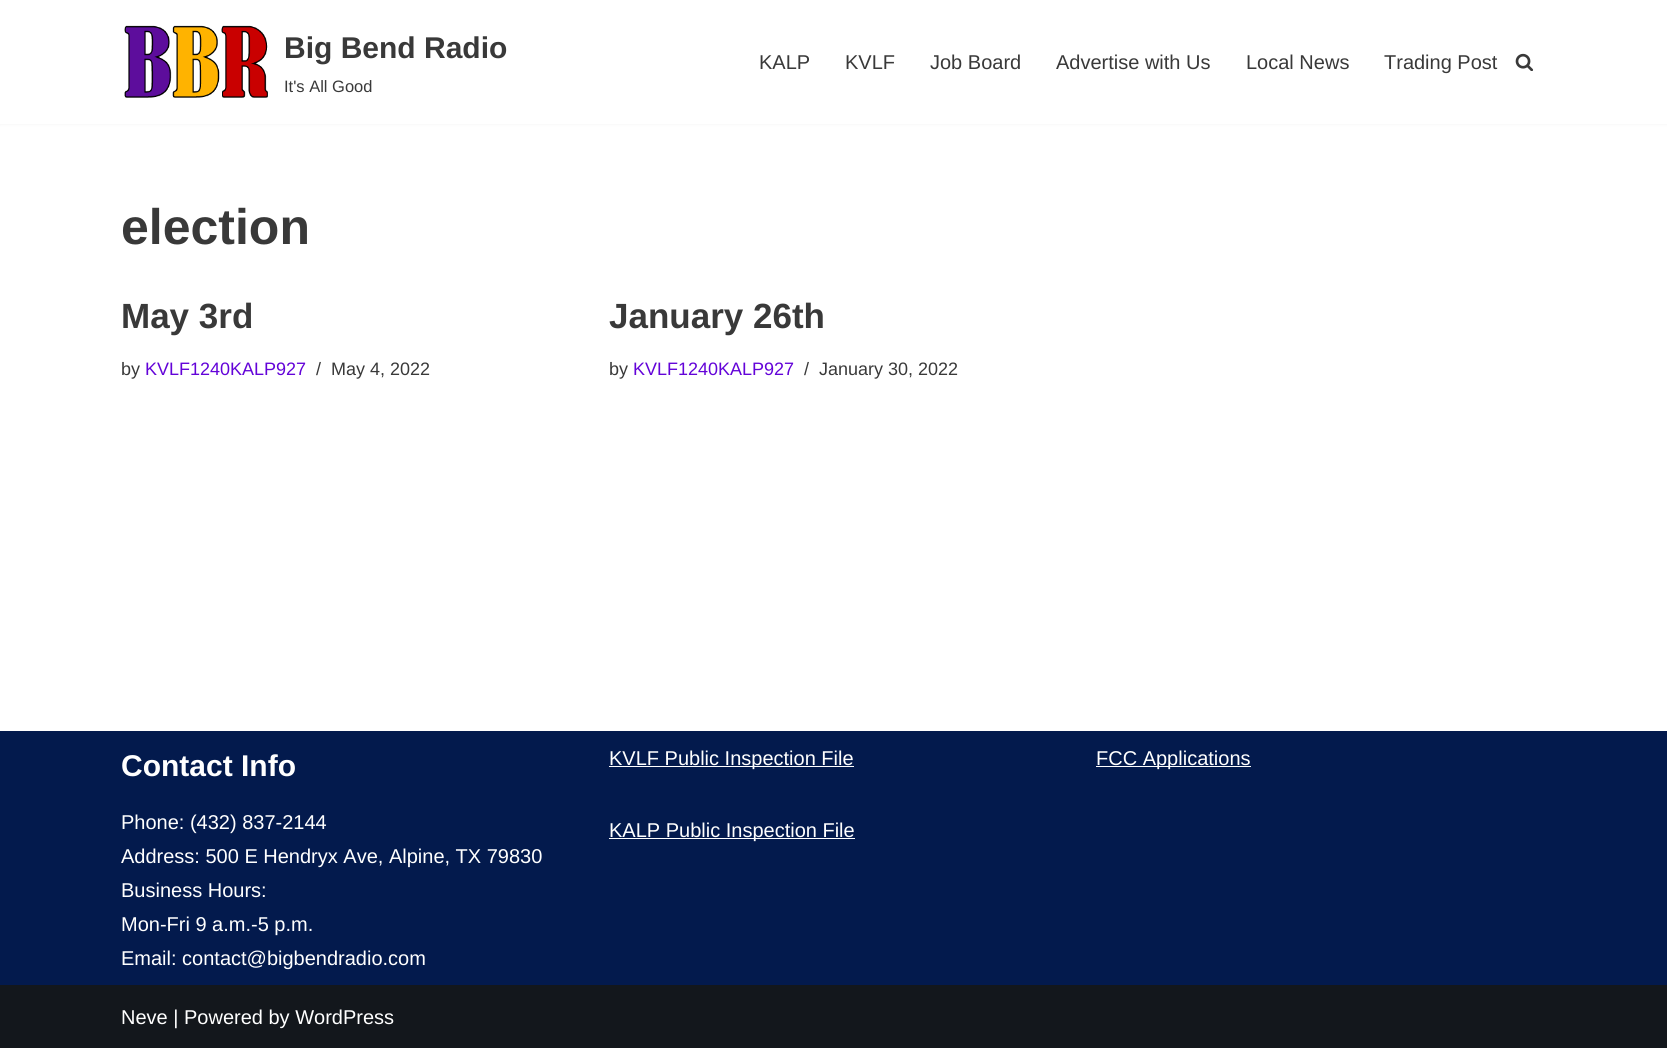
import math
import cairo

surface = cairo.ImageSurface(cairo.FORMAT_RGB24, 1667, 1048)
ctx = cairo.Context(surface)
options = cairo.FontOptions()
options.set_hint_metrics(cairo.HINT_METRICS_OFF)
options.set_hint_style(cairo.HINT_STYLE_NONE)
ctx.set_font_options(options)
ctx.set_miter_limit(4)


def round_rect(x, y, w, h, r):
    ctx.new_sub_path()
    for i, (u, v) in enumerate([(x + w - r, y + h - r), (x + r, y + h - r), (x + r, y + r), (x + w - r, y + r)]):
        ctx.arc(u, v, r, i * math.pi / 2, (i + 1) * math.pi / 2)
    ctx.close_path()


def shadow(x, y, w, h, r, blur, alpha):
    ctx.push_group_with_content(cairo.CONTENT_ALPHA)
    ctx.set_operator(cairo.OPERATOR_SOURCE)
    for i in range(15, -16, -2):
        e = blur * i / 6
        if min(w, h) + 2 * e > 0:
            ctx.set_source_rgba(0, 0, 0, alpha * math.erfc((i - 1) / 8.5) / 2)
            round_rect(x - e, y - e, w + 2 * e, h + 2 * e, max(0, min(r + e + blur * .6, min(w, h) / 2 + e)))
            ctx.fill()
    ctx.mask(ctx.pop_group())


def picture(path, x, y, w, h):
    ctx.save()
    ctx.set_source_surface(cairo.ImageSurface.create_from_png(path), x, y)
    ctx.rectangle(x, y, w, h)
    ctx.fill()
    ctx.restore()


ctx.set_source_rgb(1, 1, 1)
ctx.paint()
ctx.set_source_rgb(0, 0, 0)
shadow(0, -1, 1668, 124, 0, 2, 0.1)
ctx.set_source_rgb(1, 1, 1)
ctx.rectangle(0, 0, 1667, 124)
ctx.fill()
picture("img1.png", 124, 25, 144, 73)
ctx.select_font_face("Liberation Sans", cairo.FONT_SLANT_NORMAL, cairo.FONT_WEIGHT_BOLD)
ctx.set_font_size(30)
ctx.set_source_rgb(0.224, 0.224, 0.224)
ctx.move_to(284, 58)
ctx.show_text("Big Bend Radio")
ctx.select_font_face("Liberation Sans")
ctx.set_font_size(16.5)
ctx.move_to(284, 92)
ctx.show_text("It's All Good")
ctx.set_font_size(20)
ctx.move_to(759, 69)
ctx.show_text("KALP")
ctx.move_to(845, 69)
ctx.show_text("KVLF")
ctx.move_to(930, 69)
ctx.show_text("Job Board")
ctx.move_to(1056, 69)
ctx.show_text("Advertise with Us")
ctx.move_to(1246, 69)
ctx.show_text("Local News")
ctx.move_to(1384, 69)
ctx.show_text("Trading Post")
picture("img2.png", 1515, 53, 19, 18)
ctx.select_font_face("Liberation Sans", cairo.FONT_SLANT_NORMAL, cairo.FONT_WEIGHT_BOLD)
ctx.set_font_size(50)
ctx.move_to(121, 244)
ctx.show_text("election")
ctx.set_font_size(35)
ctx.move_to(121, 328)
ctx.show_text("May 3rd")
ctx.select_font_face("Liberation Sans")
ctx.set_font_size(18)
ctx.move_to(121, 375)
ctx.show_text("by")
ctx.set_source_rgb(0.388, 0.012, 0.847)
ctx.move_to(145, 375)
ctx.show_text("KVLF1240KALP927")
ctx.set_source_rgb(0.224, 0.224, 0.224)
ctx.move_to(316, 375)
ctx.show_text("/")
ctx.move_to(331, 375)
ctx.show_text("May 4, 2022")
ctx.select_font_face("Liberation Sans", cairo.FONT_SLANT_NORMAL, cairo.FONT_WEIGHT_BOLD)
ctx.set_font_size(35)
ctx.move_to(609, 328)
ctx.show_text("January 26th")
ctx.select_font_face("Liberation Sans")
ctx.set_font_size(18)
ctx.move_to(609, 375)
ctx.show_text("by")
ctx.set_source_rgb(0.388, 0.012, 0.847)
ctx.move_to(633, 375)
ctx.show_text("KVLF1240KALP927")
ctx.set_source_rgb(0.224, 0.224, 0.224)
ctx.move_to(804, 375)
ctx.show_text("/")
ctx.move_to(819, 375)
ctx.show_text("January 30, 2022")
ctx.set_source_rgb(0.012, 0.102, 0.302)
ctx.rectangle(0, 731, 1667, 254)
ctx.fill()
ctx.select_font_face("Liberation Sans", cairo.FONT_SLANT_NORMAL, cairo.FONT_WEIGHT_BOLD)
ctx.set_font_size(30)
ctx.set_source_rgb(1, 1, 1)
ctx.move_to(121, 776)
ctx.show_text("Contact Info")
ctx.select_font_face("Liberation Sans")
ctx.set_font_size(20)
ctx.move_to(121, 829)
ctx.show_text("Phone: (432) 837-2144")
ctx.move_to(121, 863)
ctx.show_text("Address: 500 E Hendryx Ave, Alpine, TX 79830")
ctx.move_to(121, 897)
ctx.show_text("Business Hours:")
ctx.move_to(121, 931)
ctx.show_text("Mon-Fri 9 a.m.-5 p.m.")
ctx.move_to(121, 965)
ctx.show_text("Email: contact@bigbendradio.com")
ctx.rectangle(609, 766, 245, 1)
ctx.fill()
ctx.move_to(609, 765)
ctx.show_text("KVLF Public Inspection File")
ctx.rectangle(609, 838, 246, 1)
ctx.fill()
ctx.move_to(609, 837)
ctx.show_text("KALP Public Inspection File")
ctx.rectangle(1096, 766, 155, 1)
ctx.fill()
ctx.move_to(1096, 765)
ctx.show_text("FCC Applications")
ctx.set_source_rgb(0.078, 0.09, 0.11)
ctx.rectangle(0, 985, 1667, 63)
ctx.fill()
ctx.set_source_rgb(1, 1, 1)
ctx.move_to(121, 1024)
ctx.show_text("Neve | Powered by WordPress")
surface.write_to_png("page.png")
